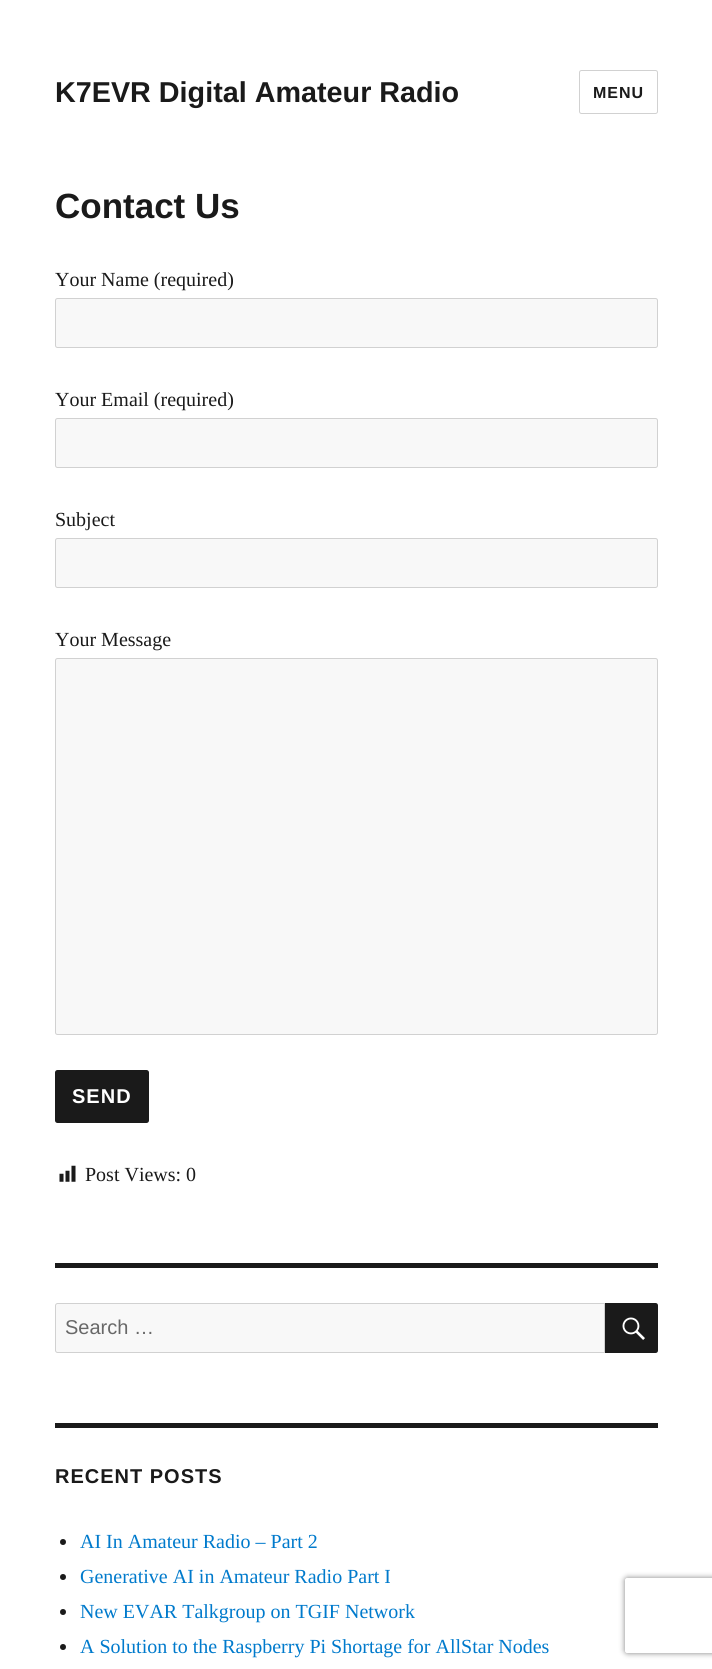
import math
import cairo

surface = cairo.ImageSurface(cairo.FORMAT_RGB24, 712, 1669)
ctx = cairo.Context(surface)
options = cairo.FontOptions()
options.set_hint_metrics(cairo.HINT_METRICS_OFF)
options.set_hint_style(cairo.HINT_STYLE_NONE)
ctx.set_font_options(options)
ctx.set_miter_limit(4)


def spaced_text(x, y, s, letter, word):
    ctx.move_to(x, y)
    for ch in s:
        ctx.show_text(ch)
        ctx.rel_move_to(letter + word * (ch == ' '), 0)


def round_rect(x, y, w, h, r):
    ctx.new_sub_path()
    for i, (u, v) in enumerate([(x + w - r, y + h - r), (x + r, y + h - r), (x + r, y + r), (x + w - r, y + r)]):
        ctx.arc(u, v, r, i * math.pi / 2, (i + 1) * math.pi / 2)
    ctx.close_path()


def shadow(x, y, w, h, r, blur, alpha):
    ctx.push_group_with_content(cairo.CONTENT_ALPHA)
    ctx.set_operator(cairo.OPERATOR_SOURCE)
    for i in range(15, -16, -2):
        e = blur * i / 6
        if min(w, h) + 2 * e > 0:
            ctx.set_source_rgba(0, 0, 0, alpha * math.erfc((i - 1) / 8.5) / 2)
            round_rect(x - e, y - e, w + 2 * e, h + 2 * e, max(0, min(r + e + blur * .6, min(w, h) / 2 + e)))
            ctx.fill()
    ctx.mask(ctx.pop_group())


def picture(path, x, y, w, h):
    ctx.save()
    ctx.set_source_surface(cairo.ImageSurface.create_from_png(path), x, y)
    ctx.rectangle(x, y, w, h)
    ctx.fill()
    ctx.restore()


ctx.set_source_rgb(1, 1, 1)
ctx.paint()
ctx.select_font_face("Liberation Sans", cairo.FONT_SLANT_NORMAL, cairo.FONT_WEIGHT_BOLD)
ctx.set_font_size(28.75)
ctx.set_source_rgb(0.102, 0.102, 0.102)
ctx.move_to(55, 102)
ctx.show_text("K7EVR Digital Amateur Radio")
round_rect(579.5, 70.5, 78, 43, 2)
ctx.set_source_rgb(0.82, 0.82, 0.82)
ctx.set_line_width(1)
ctx.stroke()
ctx.set_font_size(16)
ctx.set_source_rgb(0.102, 0.102, 0.102)
spaced_text(593, 98, "MENU", 1, 0)
ctx.set_font_size(35)
ctx.move_to(55, 218)
ctx.show_text("Contact Us")
ctx.select_font_face("Liberation Serif")
ctx.set_font_size(20)
ctx.move_to(55, 286)
ctx.show_text("Your Name (required)")
ctx.set_source_rgb(0.969, 0.969, 0.969)
round_rect(55.5, 298.5, 602, 49, 2)
ctx.fill_preserve()
ctx.set_source_rgb(0.82, 0.82, 0.82)
ctx.stroke()
ctx.set_source_rgb(0.102, 0.102, 0.102)
ctx.move_to(55, 406)
ctx.show_text("Your Email (required)")
ctx.set_source_rgb(0.969, 0.969, 0.969)
round_rect(55.5, 418.5, 602, 49, 2)
ctx.fill_preserve()
ctx.set_source_rgb(0.82, 0.82, 0.82)
ctx.stroke()
ctx.set_source_rgb(0.102, 0.102, 0.102)
ctx.move_to(55, 526)
ctx.show_text("Subject")
ctx.set_source_rgb(0.969, 0.969, 0.969)
round_rect(55.5, 538.5, 602, 49, 2)
ctx.fill_preserve()
ctx.set_source_rgb(0.82, 0.82, 0.82)
ctx.stroke()
ctx.set_source_rgb(0.102, 0.102, 0.102)
ctx.move_to(55, 646)
ctx.show_text("Your Message")
ctx.set_source_rgb(0.969, 0.969, 0.969)
round_rect(55.5, 658.5, 602, 376, 2)
ctx.fill_preserve()
ctx.set_source_rgb(0.82, 0.82, 0.82)
ctx.stroke()
ctx.set_source_rgb(0.102, 0.102, 0.102)
round_rect(55, 1070, 94, 53, 2.5)
ctx.fill()
ctx.select_font_face("Liberation Sans", cairo.FONT_SLANT_NORMAL, cairo.FONT_WEIGHT_BOLD)
ctx.set_source_rgb(1, 1, 1)
spaced_text(72, 1103, "SEND", 1, 0)
picture("img1.png", 59, 1165, 17, 17)
ctx.select_font_face("Liberation Serif")
ctx.set_source_rgb(0.102, 0.102, 0.102)
ctx.move_to(85, 1181)
ctx.show_text("Post Views: 0")
ctx.rectangle(55, 1263, 603, 5)
ctx.fill()
ctx.set_source_rgb(0.969, 0.969, 0.969)
ctx.new_path()
ctx.move_to(57.5, 1303.5)
ctx.line_to(604.5, 1303.5)
ctx.line_to(604.5, 1352.5)
ctx.line_to(57.5, 1352.5)
ctx.curve_to(56.5, 1352.5, 55.5, 1351.5, 55.5, 1350.5)
ctx.line_to(55.5, 1305.5)
ctx.curve_to(55.5, 1304.5, 56.5, 1303.5, 57.5, 1303.5)
ctx.close_path()
ctx.fill_preserve()
ctx.set_source_rgb(0.82, 0.82, 0.82)
ctx.stroke()
ctx.select_font_face("Liberation Sans")
ctx.set_source_rgb(0.408, 0.408, 0.408)
ctx.move_to(65, 1334)
ctx.show_text("Search …")
ctx.set_source_rgb(0.102, 0.102, 0.102)
ctx.new_path()
ctx.move_to(605, 1303)
ctx.line_to(655.5, 1303)
ctx.curve_to(657, 1303, 658, 1304, 658, 1305.5)
ctx.line_to(658, 1350.5)
ctx.curve_to(658, 1352, 657, 1353, 655.5, 1353)
ctx.line_to(605, 1353)
ctx.close_path()
ctx.fill()
picture("img2.png", 622, 1317, 23, 23)
ctx.rectangle(55, 1423, 603, 5)
ctx.fill()
ctx.select_font_face("Liberation Sans", cairo.FONT_SLANT_NORMAL, cairo.FONT_WEIGHT_BOLD)
spaced_text(55, 1483, "RECENT POSTS", 1, 0)
ctx.new_path()
ctx.arc(63, 1542, 3, 0, 2 * math.pi)
ctx.fill()
ctx.select_font_face("Liberation Serif")
ctx.set_source_rgb(0, 0.478, 0.8)
ctx.move_to(80, 1548)
ctx.show_text("AI In Amateur Radio – Part 2")
ctx.set_source_rgb(0.102, 0.102, 0.102)
ctx.new_path()
ctx.arc(63, 1577, 3, 0, 2 * math.pi)
ctx.fill()
ctx.set_source_rgb(0, 0.478, 0.8)
ctx.move_to(80, 1583)
ctx.show_text("Generative AI in Amateur Radio Part I")
ctx.set_source_rgb(0.102, 0.102, 0.102)
ctx.new_path()
ctx.arc(63, 1612, 3, 0, 2 * math.pi)
ctx.fill()
ctx.set_source_rgb(0, 0.478, 0.8)
ctx.move_to(80, 1618)
ctx.show_text("New EVAR Talkgroup on TGIF Network")
ctx.set_source_rgb(0.102, 0.102, 0.102)
ctx.new_path()
ctx.arc(63, 1647, 3, 0, 2 * math.pi)
ctx.fill()
ctx.set_source_rgb(0, 0.478, 0.8)
ctx.move_to(80, 1653)
ctx.show_text("A Solution to the Raspberry Pi Shortage for AllStar Nodes")
ctx.save()
ctx.set_fill_rule(cairo.FILL_RULE_EVEN_ODD)
ctx.new_path()
ctx.move_to(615, 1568)
ctx.line_to(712, 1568)
ctx.line_to(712, 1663)
ctx.line_to(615, 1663)
ctx.close_path()
ctx.move_to(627.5, 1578)
ctx.line_to(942.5, 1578)
ctx.curve_to(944, 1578, 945, 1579, 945, 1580.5)
ctx.line_to(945, 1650.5)
ctx.curve_to(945, 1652, 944, 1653, 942.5, 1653)
ctx.line_to(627.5, 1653)
ctx.curve_to(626, 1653, 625, 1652, 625, 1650.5)
ctx.line_to(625, 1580.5)
ctx.curve_to(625, 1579, 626, 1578, 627.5, 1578)
ctx.close_path()
ctx.clip()
ctx.set_source_rgb(0.502, 0.502, 0.502)
shadow(625, 1578, 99, 75, 2.5, 3, 1)
ctx.restore()
surface.write_to_png("page.png")
